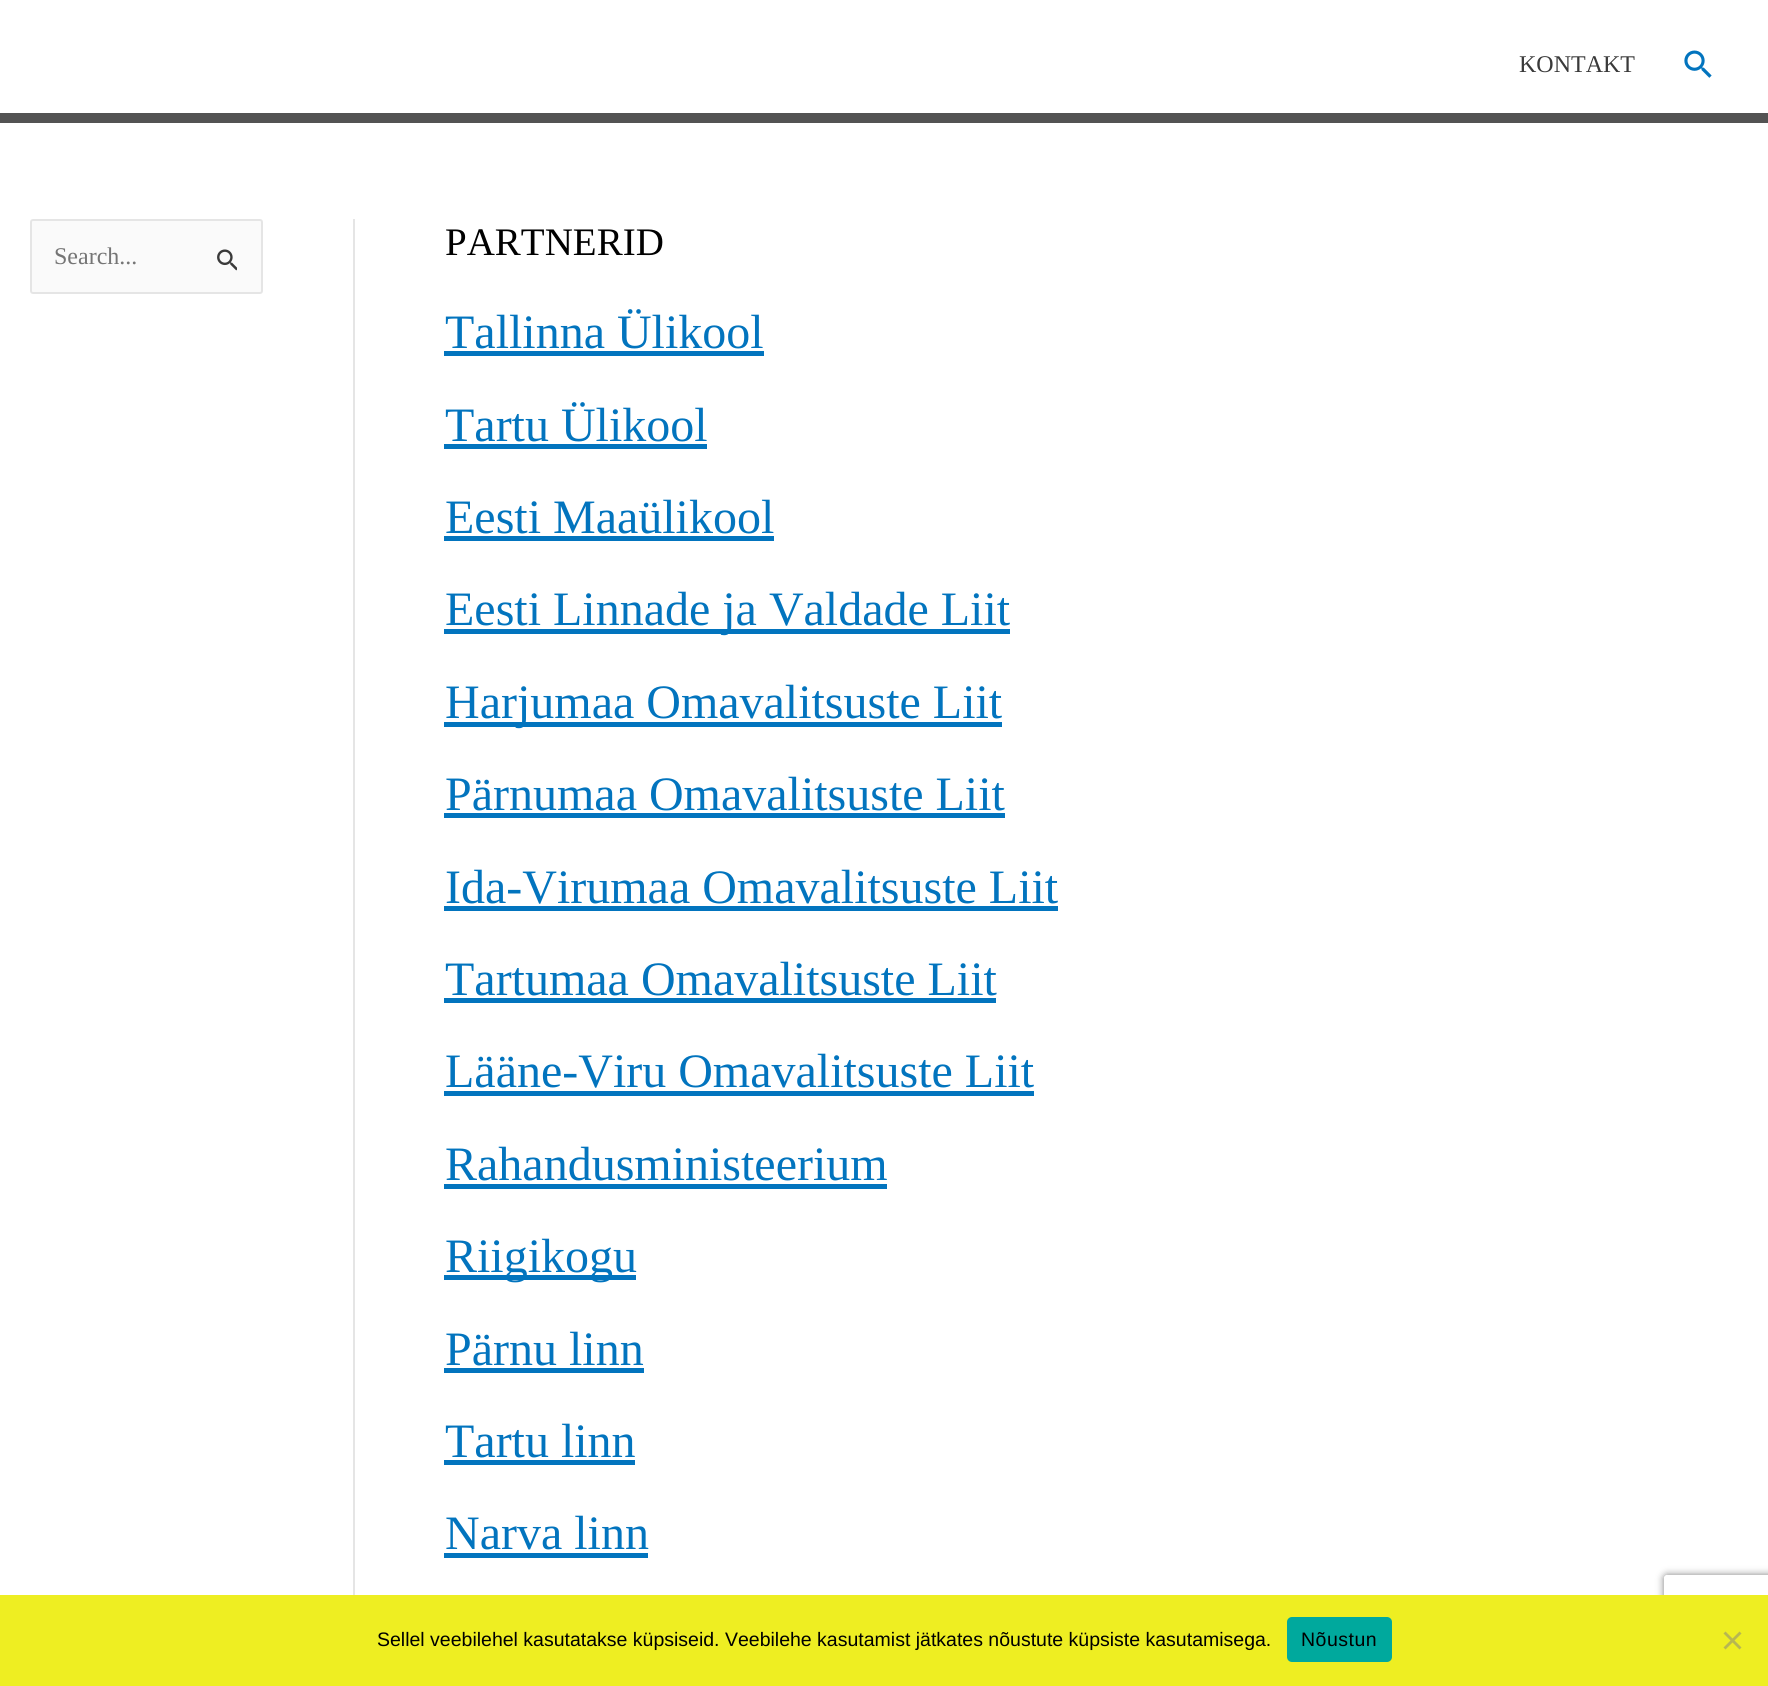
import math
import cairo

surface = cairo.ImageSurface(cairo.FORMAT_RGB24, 1768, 1686)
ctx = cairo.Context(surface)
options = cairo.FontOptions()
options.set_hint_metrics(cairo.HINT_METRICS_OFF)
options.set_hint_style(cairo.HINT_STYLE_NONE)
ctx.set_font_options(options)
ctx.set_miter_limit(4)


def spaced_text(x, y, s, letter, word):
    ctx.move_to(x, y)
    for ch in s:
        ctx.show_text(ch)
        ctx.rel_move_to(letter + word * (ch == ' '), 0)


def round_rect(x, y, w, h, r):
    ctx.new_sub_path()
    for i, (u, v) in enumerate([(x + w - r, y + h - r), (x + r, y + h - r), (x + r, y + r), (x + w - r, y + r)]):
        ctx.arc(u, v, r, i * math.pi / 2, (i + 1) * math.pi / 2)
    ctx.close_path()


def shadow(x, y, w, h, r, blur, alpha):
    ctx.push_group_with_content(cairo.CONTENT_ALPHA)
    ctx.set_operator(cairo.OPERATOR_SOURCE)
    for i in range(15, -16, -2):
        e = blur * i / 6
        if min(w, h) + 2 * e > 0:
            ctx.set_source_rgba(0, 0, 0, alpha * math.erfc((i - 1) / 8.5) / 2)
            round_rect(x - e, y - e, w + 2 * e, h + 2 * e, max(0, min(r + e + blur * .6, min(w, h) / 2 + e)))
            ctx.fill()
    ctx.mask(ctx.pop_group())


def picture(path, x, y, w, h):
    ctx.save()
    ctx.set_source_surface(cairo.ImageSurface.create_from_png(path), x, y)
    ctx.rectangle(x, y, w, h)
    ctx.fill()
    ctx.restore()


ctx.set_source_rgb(1, 1, 1)
ctx.paint()
ctx.set_source_rgb(0.325, 0.325, 0.325)
ctx.rectangle(0, 113, 1768, 10)
ctx.fill()
ctx.select_font_face("Liberation Serif")
ctx.set_font_size(24)
ctx.set_source_rgb(0.227, 0.227, 0.227)
ctx.move_to(1519, 72)
ctx.show_text("KONTAKT")
picture("img1.png", 1684, 50, 28, 28)
ctx.set_source_rgb(0.898, 0.898, 0.898)
ctx.rectangle(353, 219, 2, 1376)
ctx.fill()
ctx.set_source_rgb(0.98, 0.98, 0.98)
round_rect(31, 220, 231, 73, 2)
ctx.fill_preserve()
ctx.set_source_rgb(0.898, 0.898, 0.898)
ctx.stroke()
ctx.set_source_rgb(0.459, 0.459, 0.459)
ctx.move_to(54, 264)
ctx.show_text("Search...")
picture("img2.png", 217, 249, 20, 22)
ctx.set_font_size(39)
ctx.set_source_rgb(0, 0, 0)
ctx.move_to(445, 255)
ctx.show_text("PARTNERID")
ctx.set_font_size(48)
ctx.set_source_rgb(0.008, 0.455, 0.745)
ctx.move_to(445, 348)
ctx.show_text("Tallinna Ülikool")
ctx.rectangle(444, 351, 320, 5)
ctx.fill()
ctx.move_to(445, 441)
ctx.show_text("Tartu Ülikool")
ctx.rectangle(444, 444, 263, 5)
ctx.fill()
ctx.move_to(445, 533)
ctx.show_text("Eesti Maaülikool")
ctx.rectangle(444, 536, 330, 5)
ctx.fill()
ctx.rectangle(444, 629, 566, 5)
ctx.fill()
ctx.move_to(445, 625)
ctx.show_text("Eesti Linnade ja Valdade Liit")
ctx.rectangle(444, 722, 558, 5)
ctx.fill()
ctx.move_to(445, 718)
ctx.show_text("Harjumaa Omavalitsuste Liit")
ctx.move_to(445, 810)
ctx.show_text("Pärnumaa Omavalitsuste Liit")
ctx.rectangle(444, 813, 561, 5)
ctx.fill()
ctx.move_to(445, 903)
ctx.show_text("Ida-Virumaa Omavalitsuste Liit")
ctx.rectangle(444, 906, 614, 5)
ctx.fill()
ctx.move_to(445, 995)
ctx.show_text("Tartumaa Omavalitsuste Liit")
ctx.rectangle(444, 998, 552, 5)
ctx.fill()
ctx.move_to(445, 1087)
ctx.show_text("Lääne-Viru Omavalitsuste Liit")
ctx.rectangle(444, 1091, 590, 5)
ctx.fill()
ctx.move_to(445, 1180)
ctx.show_text("Rahandusministeerium")
ctx.rectangle(444, 1184, 443, 5)
ctx.fill()
ctx.rectangle(444, 1275, 192, 5)
ctx.fill()
ctx.move_to(445, 1272)
ctx.show_text("Riigikogu")
ctx.move_to(445, 1365)
ctx.show_text("Pärnu linn")
ctx.rectangle(444, 1368, 200, 5)
ctx.fill()
ctx.move_to(445, 1457)
ctx.show_text("Tartu linn")
ctx.rectangle(444, 1460, 191, 5)
ctx.fill()
ctx.move_to(445, 1549)
ctx.show_text("Narva linn")
ctx.rectangle(444, 1553, 204, 5)
ctx.fill()
ctx.save()
ctx.set_fill_rule(cairo.FILL_RULE_EVEN_ODD)
ctx.new_path()
ctx.move_to(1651, 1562)
ctx.line_to(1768, 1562)
ctx.line_to(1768, 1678)
ctx.line_to(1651, 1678)
ctx.close_path()
ctx.move_to(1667, 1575)
ctx.line_to(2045, 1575)
ctx.curve_to(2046.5, 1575, 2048, 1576.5, 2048, 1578)
ctx.line_to(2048, 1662)
ctx.curve_to(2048, 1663.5, 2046.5, 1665, 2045, 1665)
ctx.line_to(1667, 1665)
ctx.curve_to(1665.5, 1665, 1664, 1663.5, 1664, 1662)
ctx.line_to(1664, 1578)
ctx.curve_to(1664, 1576.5, 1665.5, 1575, 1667, 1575)
ctx.close_path()
ctx.clip()
ctx.set_source_rgb(0.502, 0.502, 0.502)
shadow(1664, 1575, 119, 90, 3, 4, 1)
ctx.restore()
ctx.set_source_rgb(0.933, 0.933, 0.133)
ctx.rectangle(0, 1595, 1768, 91)
ctx.fill()
ctx.select_font_face("Liberation Sans")
ctx.set_font_size(19.5)
ctx.set_source_rgb(0, 0, 0)
ctx.move_to(377, 1646)
ctx.show_text("Sellel veebilehel kasutatakse küpsiseid. Veebilehe kasutamist jätkates nõustute küpsiste kasutamisega.")
ctx.set_source_rgb(0, 0.663, 0.616)
round_rect(1287, 1617, 105, 45, 5)
ctx.fill()
ctx.set_source_rgb(0, 0, 0)
spaced_text(1301, 1646, "Nõustun", 0.5, 0)
ctx.set_source_rgb(0.718, 0.718, 0.318)
ctx.new_path()
ctx.move_to(1739.5, 1631.5)
ctx.line_to(1741.5, 1633.5)
ctx.line_to(1725.5, 1649.5)
ctx.line_to(1723.5, 1647.5)
ctx.close_path()
ctx.fill()
ctx.new_path()
ctx.move_to(1723.5, 1633.5)
ctx.line_to(1725.5, 1631.5)
ctx.line_to(1741.5, 1647.5)
ctx.line_to(1739.5, 1649.5)
ctx.close_path()
ctx.fill()
surface.write_to_png("page.png")
